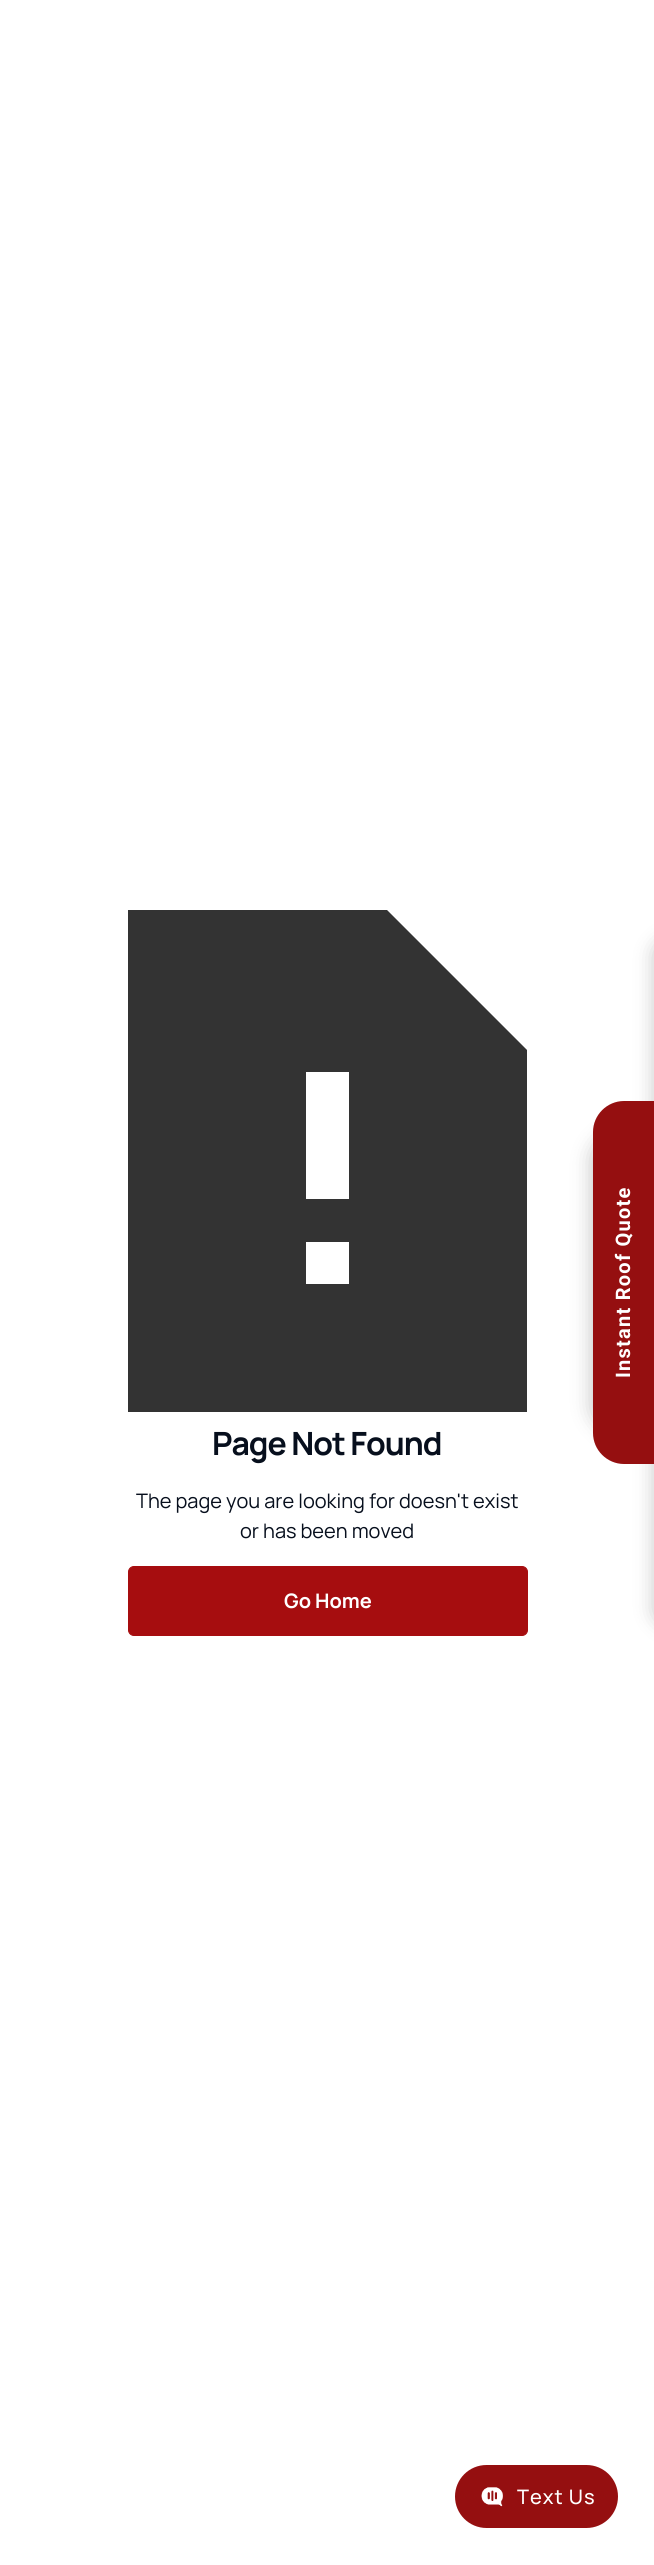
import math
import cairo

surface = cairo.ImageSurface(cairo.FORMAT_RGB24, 654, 2565)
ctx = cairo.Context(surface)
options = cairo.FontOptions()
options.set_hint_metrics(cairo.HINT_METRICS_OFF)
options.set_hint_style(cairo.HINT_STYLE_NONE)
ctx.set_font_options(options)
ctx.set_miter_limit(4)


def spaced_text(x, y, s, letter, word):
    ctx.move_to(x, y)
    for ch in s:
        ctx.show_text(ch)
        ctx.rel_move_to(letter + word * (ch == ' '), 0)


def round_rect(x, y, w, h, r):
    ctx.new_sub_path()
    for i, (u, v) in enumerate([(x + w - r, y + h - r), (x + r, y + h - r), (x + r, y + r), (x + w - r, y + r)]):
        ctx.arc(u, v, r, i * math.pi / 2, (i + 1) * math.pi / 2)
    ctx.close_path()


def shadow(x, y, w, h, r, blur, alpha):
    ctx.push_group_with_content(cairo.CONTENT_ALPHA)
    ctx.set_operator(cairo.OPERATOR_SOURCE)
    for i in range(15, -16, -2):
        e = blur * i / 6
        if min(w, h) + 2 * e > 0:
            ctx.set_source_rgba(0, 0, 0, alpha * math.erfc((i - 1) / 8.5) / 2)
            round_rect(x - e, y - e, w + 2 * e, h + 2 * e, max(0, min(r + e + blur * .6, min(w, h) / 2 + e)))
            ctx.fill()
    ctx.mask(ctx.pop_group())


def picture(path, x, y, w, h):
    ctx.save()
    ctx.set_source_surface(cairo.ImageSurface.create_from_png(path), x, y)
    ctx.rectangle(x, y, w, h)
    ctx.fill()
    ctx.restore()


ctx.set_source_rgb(1, 1, 1)
ctx.paint()
ctx.set_source_rgb(0, 0, 0)
shadow(653, 939, 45, 687, 15, 9.5, 0.2)
shadow(590, 1133, 63, 300, 31.5, 9.5, 0.2)
ctx.set_source_rgb(0.584, 0.059, 0.063)
ctx.rectangle(593, 1164, 61, 237)
ctx.fill()
ctx.new_path()
ctx.move_to(624, 1101)
ctx.line_to(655, 1101)
ctx.line_to(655, 1164)
ctx.line_to(593, 1164)
ctx.line_to(593, 1132)
ctx.curve_to(593, 1115, 607, 1101, 624, 1101)
ctx.close_path()
ctx.fill()
ctx.select_font_face("Roboto", cairo.FONT_SLANT_NORMAL, cairo.FONT_WEIGHT_BOLD)
ctx.set_font_size(20)
ctx.set_source_rgb(1, 1, 1)
ctx.save()
ctx.translate(630, 1378)
ctx.rotate(-90 * math.pi / 180)
spaced_text(0, 0, "Instant Roof Quote", 1.25, 0)
ctx.restore()
ctx.set_source_rgb(0.584, 0.059, 0.063)
ctx.new_path()
ctx.move_to(593, 1401)
ctx.line_to(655, 1401)
ctx.line_to(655, 1464)
ctx.line_to(624, 1464)
ctx.curve_to(607, 1464, 593, 1450, 593, 1433)
ctx.close_path()
ctx.fill()
ctx.set_source_rgb(0.2, 0.2, 0.2)
ctx.set_fill_rule(cairo.FILL_RULE_EVEN_ODD)
ctx.new_path()
ctx.move_to(128, 910)
ctx.line_to(387, 910)
ctx.line_to(527, 1050)
ctx.line_to(527, 1412)
ctx.line_to(128, 1412)
ctx.close_path()
ctx.move_to(306, 1072)
ctx.line_to(349, 1072)
ctx.line_to(349, 1199)
ctx.line_to(306, 1199)
ctx.close_path()
ctx.move_to(306, 1242)
ctx.line_to(349, 1242)
ctx.line_to(349, 1284)
ctx.line_to(306, 1284)
ctx.close_path()
ctx.fill()
ctx.select_font_face("Manrope", cairo.FONT_SLANT_NORMAL, cairo.FONT_WEIGHT_BOLD)
ctx.set_font_size(32)
ctx.set_source_rgb(0.031, 0.059, 0.114)
spaced_text(212, 1455, "Page Not Found", -1, 0)
ctx.select_font_face("Manrope")
ctx.set_font_size(20)
ctx.move_to(136, 1508)
ctx.show_text("The page you are looking for doesn't exist")
ctx.move_to(240, 1538)
ctx.show_text("or has been moved")
ctx.set_source_rgb(0.651, 0.051, 0.059)
round_rect(128.5, 1566.5, 399, 69, 5.5)
ctx.fill_preserve()
ctx.set_line_width(1)
ctx.stroke()
ctx.select_font_face("Manrope", cairo.FONT_SLANT_NORMAL, cairo.FONT_WEIGHT_BOLD)
ctx.set_source_rgb(1, 1, 1)
ctx.move_to(284, 1608)
ctx.show_text("Go Home")
ctx.set_source_rgb(0.584, 0.059, 0.063)
round_rect(455, 2465, 163, 63, 31.5)
ctx.fill()
picture("img1.png", 481, 2487, 22, 20)
ctx.select_font_face("Manrope Medium")
ctx.set_source_rgb(1, 1, 1)
spaced_text(517, 2504, "Text Us", 1, 0)
surface.write_to_png("page.png")
